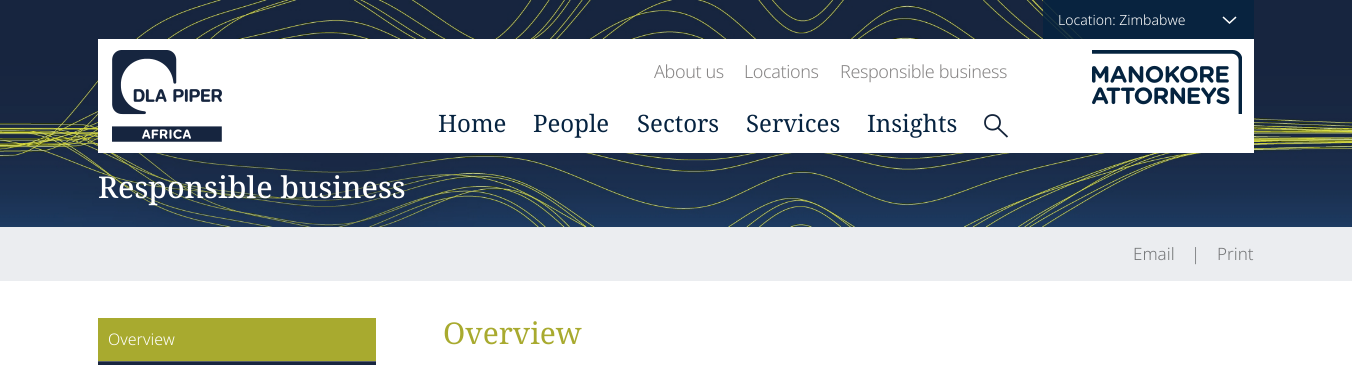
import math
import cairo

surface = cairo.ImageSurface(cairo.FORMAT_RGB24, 1352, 365)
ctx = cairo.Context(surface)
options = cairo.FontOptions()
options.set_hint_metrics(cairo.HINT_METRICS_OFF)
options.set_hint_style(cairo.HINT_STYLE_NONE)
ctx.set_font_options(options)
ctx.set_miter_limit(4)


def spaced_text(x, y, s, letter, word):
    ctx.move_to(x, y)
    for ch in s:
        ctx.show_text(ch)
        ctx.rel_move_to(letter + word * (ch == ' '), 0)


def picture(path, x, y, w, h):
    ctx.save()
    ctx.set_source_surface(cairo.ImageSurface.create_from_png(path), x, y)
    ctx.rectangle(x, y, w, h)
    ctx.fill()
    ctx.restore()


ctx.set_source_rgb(1, 1, 1)
ctx.paint()
picture("img1.png", 0, 0, 1352, 227)
ctx.set_source_rgba(0.024, 0.137, 0.251, 0.87)
ctx.rectangle(1043, 0, 211, 39)
ctx.fill()
ctx.select_font_face("Noto Sans Light")
ctx.set_font_size(14)
ctx.set_source_rgb(1, 1, 1)
ctx.move_to(1058, 25)
ctx.show_text("Location: Zimbabwe")
ctx.new_path()
ctx.move_to(1223, 17)
ctx.line_to(1229.5, 23)
ctx.line_to(1236, 17)
ctx.set_line_width(1.5)
ctx.stroke()
ctx.rectangle(98, 39, 1156, 114)
ctx.fill()
picture("img2.png", 112, 50, 110, 92)
ctx.set_font_size(18)
ctx.set_source_rgb(0.529, 0.522, 0.522)
spaced_text(654, 78, "About us", -0.4, 0)
spaced_text(744, 78, "Locations", -0.4, 0)
spaced_text(840, 78, "Responsible business", -0.4, 0)
ctx.select_font_face("Noto Serif")
ctx.set_font_size(24)
ctx.set_source_rgb(0.024, 0.137, 0.251)
ctx.move_to(438, 132)
ctx.show_text("Home")
ctx.move_to(533, 132)
ctx.show_text("People")
ctx.move_to(637, 132)
ctx.show_text("Sectors")
ctx.move_to(746, 132)
ctx.show_text("Services")
ctx.move_to(867, 132)
ctx.show_text("Insights")
ctx.new_path()
ctx.move_to(1000, 122.5)
ctx.curve_to(1000, 132, 985, 132, 985, 122.5)
ctx.curve_to(985, 112.5, 1000, 112.5, 1000, 122.5)
ctx.close_path()
ctx.move_to(997.5, 127.5)
ctx.line_to(1007.5, 137)
ctx.set_source_rgb(0.082, 0.141, 0.227)
ctx.set_line_width(1.8)
ctx.stroke()
picture("img3.png", 1092, 50, 150, 64)
ctx.select_font_face("Noto Serif Medium")
ctx.set_font_size(30)
ctx.set_source_rgb(1, 1, 1)
ctx.move_to(98, 198)
ctx.show_text("Responsible business")
ctx.set_source_rgb(0.918, 0.929, 0.941)
ctx.rectangle(0, 227, 1352, 54)
ctx.fill()
ctx.select_font_face("Noto Sans Light")
ctx.set_font_size(17)
ctx.set_source_rgb(0.455, 0.463, 0.471)
ctx.move_to(1133, 260)
ctx.show_text("Email")
ctx.move_to(1191, 260)
ctx.show_text("|")
ctx.move_to(1217, 260)
ctx.show_text("Print")
ctx.set_source_rgb(0.659, 0.667, 0.184)
ctx.rectangle(98, 318, 278, 43)
ctx.fill()
ctx.set_source_rgb(0.345, 0.369, 0.416)
ctx.rectangle(98, 361, 278, 1)
ctx.fill()
ctx.set_font_size(16)
ctx.set_source_rgb(1, 1, 1)
ctx.move_to(108, 345)
ctx.show_text("Overview")
ctx.set_source_rgb(0.094, 0.145, 0.251)
ctx.rectangle(98, 362, 278, 3)
ctx.fill()
ctx.select_font_face("Noto Serif")
ctx.set_font_size(30)
ctx.set_source_rgb(0.659, 0.667, 0.184)
ctx.move_to(443, 344)
ctx.show_text("Overview")
surface.write_to_png("page.png")
